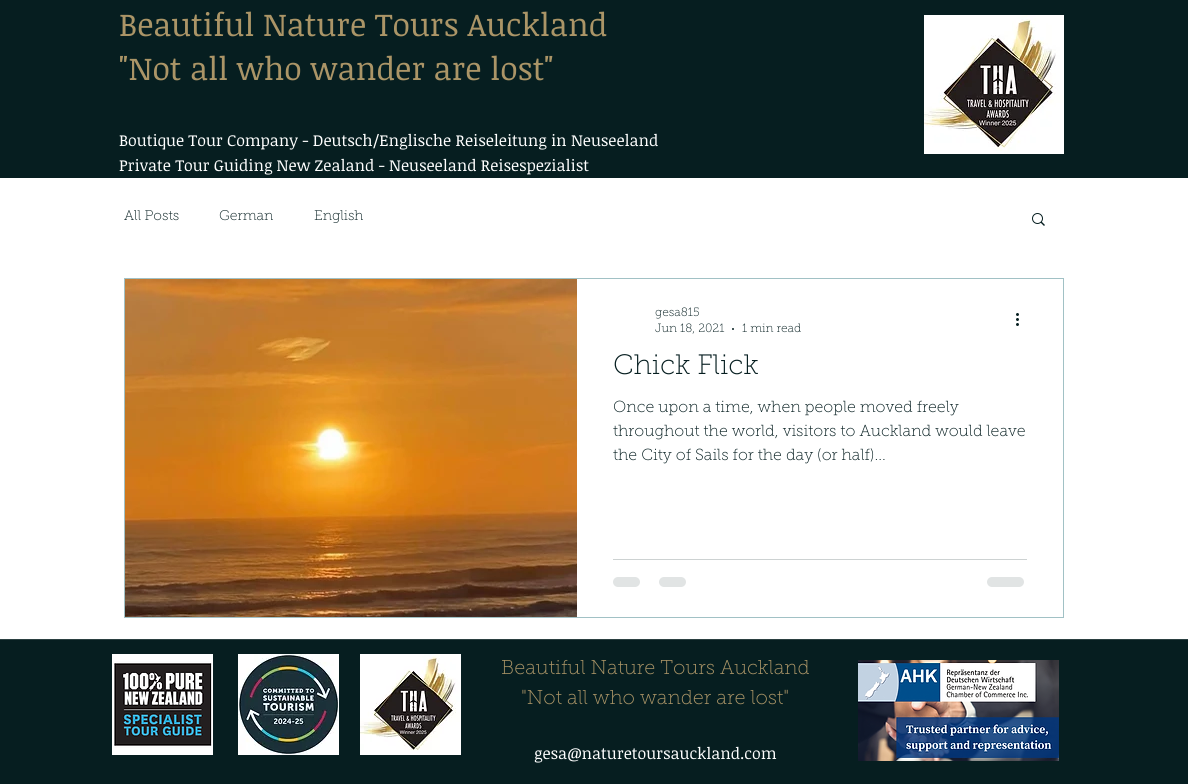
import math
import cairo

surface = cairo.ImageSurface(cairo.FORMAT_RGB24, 1188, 784)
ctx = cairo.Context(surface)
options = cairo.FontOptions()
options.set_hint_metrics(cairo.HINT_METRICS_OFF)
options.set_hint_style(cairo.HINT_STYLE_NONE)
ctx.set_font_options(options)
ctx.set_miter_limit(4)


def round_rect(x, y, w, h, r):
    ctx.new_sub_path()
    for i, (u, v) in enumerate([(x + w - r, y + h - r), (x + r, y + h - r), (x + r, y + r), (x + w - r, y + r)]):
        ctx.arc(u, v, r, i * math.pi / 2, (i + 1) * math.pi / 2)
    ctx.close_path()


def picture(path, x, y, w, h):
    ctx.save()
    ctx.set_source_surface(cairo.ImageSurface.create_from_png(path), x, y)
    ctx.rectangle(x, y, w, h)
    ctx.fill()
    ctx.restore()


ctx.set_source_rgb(1, 1, 1)
ctx.paint()
ctx.set_source_rgb(0.024, 0.118, 0.125)
ctx.rectangle(0, 0, 1188, 178)
ctx.fill()
ctx.select_font_face("Noticia Text")
ctx.set_font_size(32)
ctx.set_source_rgb(0.671, 0.584, 0.404)
ctx.move_to(119, 36)
ctx.show_text("Beautiful Nature Tours Auckland")
ctx.move_to(119, 80)
ctx.show_text("\"Not all who wander are lost\"")
picture("img1.png", 924, 15, 140, 139)
ctx.set_font_size(16)
ctx.set_source_rgb(1, 1, 1)
ctx.move_to(119, 146)
ctx.show_text("Boutique Tour Company - Deutsch/Englische Reiseleitung in Neuseeland")
ctx.move_to(119, 171)
ctx.show_text("Private Tour Guiding New Zealand - Neuseeland Reisespezialist")
ctx.select_font_face("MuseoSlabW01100 Thin")
ctx.set_font_size(14)
ctx.set_source_rgb(0.024, 0.118, 0.125)
ctx.move_to(124, 220)
ctx.show_text("All Posts")
ctx.move_to(219, 220)
ctx.show_text("German")
ctx.move_to(314, 220)
ctx.show_text("English")
picture("img2.png", 1032, 213, 13, 13)
ctx.rectangle(124.5, 278.5, 939, 339)
ctx.set_source_rgb(0.631, 0.757, 0.773)
ctx.set_line_width(1)
ctx.stroke()
picture("img3.png", 125, 279, 452, 338)
ctx.set_font_size(12)
ctx.set_source_rgb(0.024, 0.118, 0.125)
ctx.move_to(655, 316)
ctx.show_text("gesa815")
ctx.move_to(655, 332)
ctx.show_text("Jun 18, 2021")
ctx.new_path()
ctx.arc(733, 329, 1, 0, 2 * math.pi)
ctx.fill()
ctx.move_to(742, 332)
ctx.show_text("1 min read")
picture("img4.png", 1016, 313, 3, 13)
ctx.set_font_size(28)
ctx.move_to(613, 374)
ctx.show_text("Chick Flick")
ctx.set_font_size(16)
ctx.move_to(613, 412)
ctx.show_text("Once upon a time, when people moved freely")
ctx.move_to(613, 436)
ctx.show_text("throughout the world, visitors to Auckland would leave")
ctx.move_to(613, 460)
ctx.show_text("the City of Sails for the day (or half)...")
ctx.set_source_rgb(0.804, 0.824, 0.824)
ctx.rectangle(613, 559, 414, 1)
ctx.fill()
ctx.set_source_rgb(0.882, 0.894, 0.894)
round_rect(613, 577, 27, 10, 5)
ctx.fill()
round_rect(659, 577, 27, 10, 5)
ctx.fill()
round_rect(987, 577, 37, 10, 5)
ctx.fill()
ctx.set_source_rgb(0.024, 0.118, 0.125)
ctx.rectangle(0, 640, 1188, 144)
ctx.fill()
ctx.set_source_rgb(0.169, 0.251, 0.255)
ctx.rectangle(0, 639, 1188, 1)
ctx.fill()
picture("img5.png", 112, 654, 101, 101)
picture("img6.png", 238, 654, 101, 101)
picture("img7.png", 360, 654, 101, 101)
ctx.set_font_size(20)
ctx.set_source_rgb(0.671, 0.584, 0.404)
ctx.move_to(501, 674)
ctx.show_text("Beautiful Nature Tours Auckland")
ctx.move_to(521, 704)
ctx.show_text("\"Not all who wander are lost\"")
picture("img8.png", 858, 660, 201, 101)
ctx.select_font_face("Noticia Text")
ctx.set_font_size(16)
ctx.set_source_rgb(1, 1, 1)
ctx.move_to(534, 759)
ctx.show_text("gesa@naturetoursauckland.com")
surface.write_to_png("page.png")
